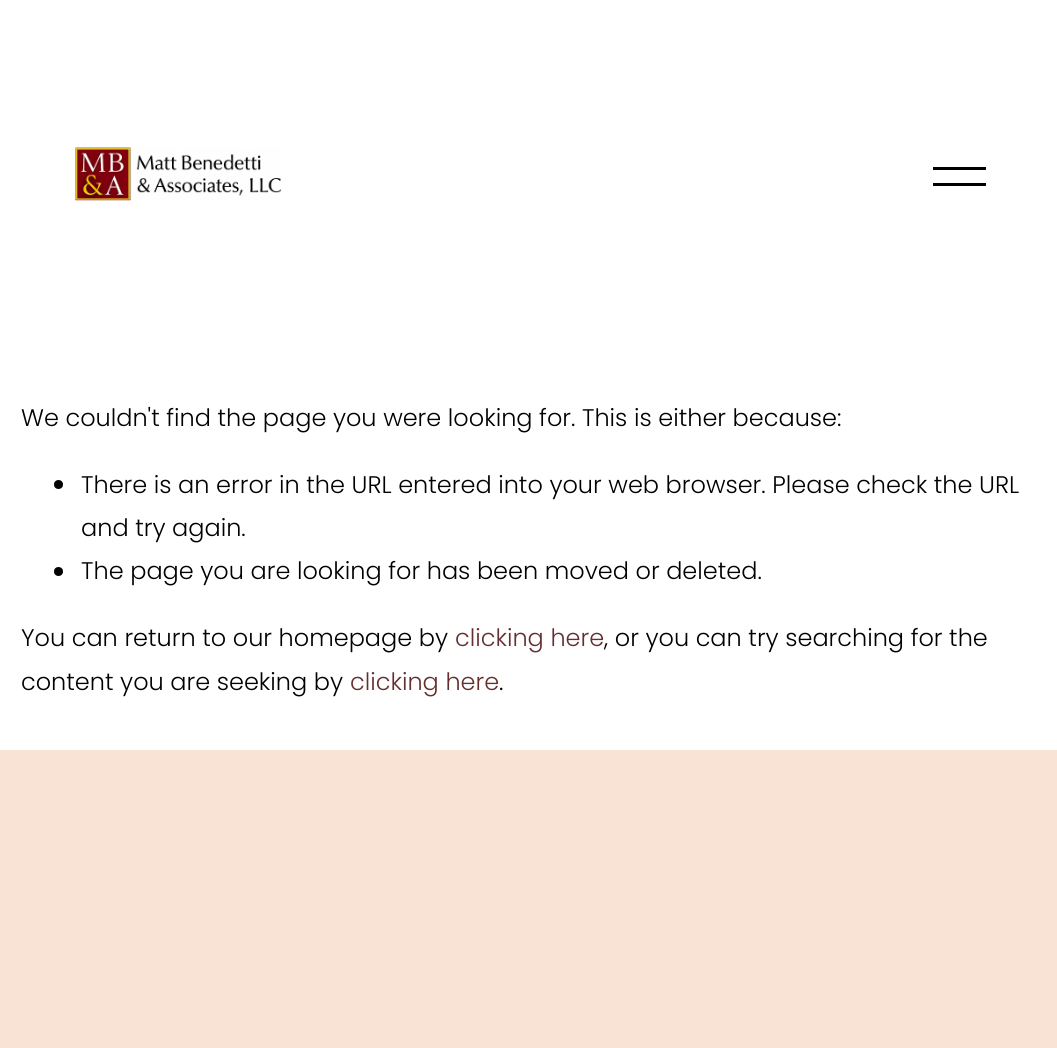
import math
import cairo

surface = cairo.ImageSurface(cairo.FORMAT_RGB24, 1057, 1048)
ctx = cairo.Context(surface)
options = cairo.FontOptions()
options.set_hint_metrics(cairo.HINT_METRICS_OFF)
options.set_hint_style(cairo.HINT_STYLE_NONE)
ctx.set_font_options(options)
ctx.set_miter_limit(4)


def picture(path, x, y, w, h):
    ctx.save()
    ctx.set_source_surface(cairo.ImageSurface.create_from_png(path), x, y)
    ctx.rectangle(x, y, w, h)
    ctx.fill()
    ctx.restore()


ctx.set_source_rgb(1, 1, 1)
ctx.paint()
picture("img1.png", 75, 147, 206, 54)
ctx.set_source_rgb(0, 0, 0)
ctx.rectangle(933, 167, 53, 3)
ctx.fill()
ctx.rectangle(933, 183, 53, 3)
ctx.fill()
ctx.select_font_face("Poppins Light")
ctx.set_font_size(24)
ctx.move_to(21, 426)
ctx.show_text("We couldn't find the page you were looking for. This is either because:")
ctx.new_path()
ctx.arc(58.5, 484.5, 4.5, 0, 2 * math.pi)
ctx.fill()
ctx.move_to(81, 493)
ctx.show_text("There is an error in the URL entered into your web browser. Please check the URL")
ctx.move_to(81, 536)
ctx.show_text("and try again.")
ctx.new_path()
ctx.arc(58.5, 571.5, 4.5, 0, 2 * math.pi)
ctx.fill()
ctx.move_to(81, 579)
ctx.show_text("The page you are looking for has been moved or deleted.")
ctx.move_to(21, 646)
ctx.show_text("You can return to our homepage by")
ctx.set_source_rgb(0.392, 0.184, 0.18)
ctx.move_to(455, 646)
ctx.show_text("clicking here")
ctx.set_source_rgb(0, 0, 0)
ctx.move_to(604, 646)
ctx.show_text(", or you can try searching for the")
ctx.move_to(21, 690)
ctx.show_text("content you are seeking by")
ctx.set_source_rgb(0.392, 0.184, 0.18)
ctx.move_to(350, 690)
ctx.show_text("clicking here")
ctx.set_source_rgb(0, 0, 0)
ctx.move_to(499, 690)
ctx.show_text(".")
ctx.set_source_rgb(0.969, 0.89, 0.835)
ctx.rectangle(0, 750, 1057, 298)
ctx.fill()
surface.write_to_png("page.png")
